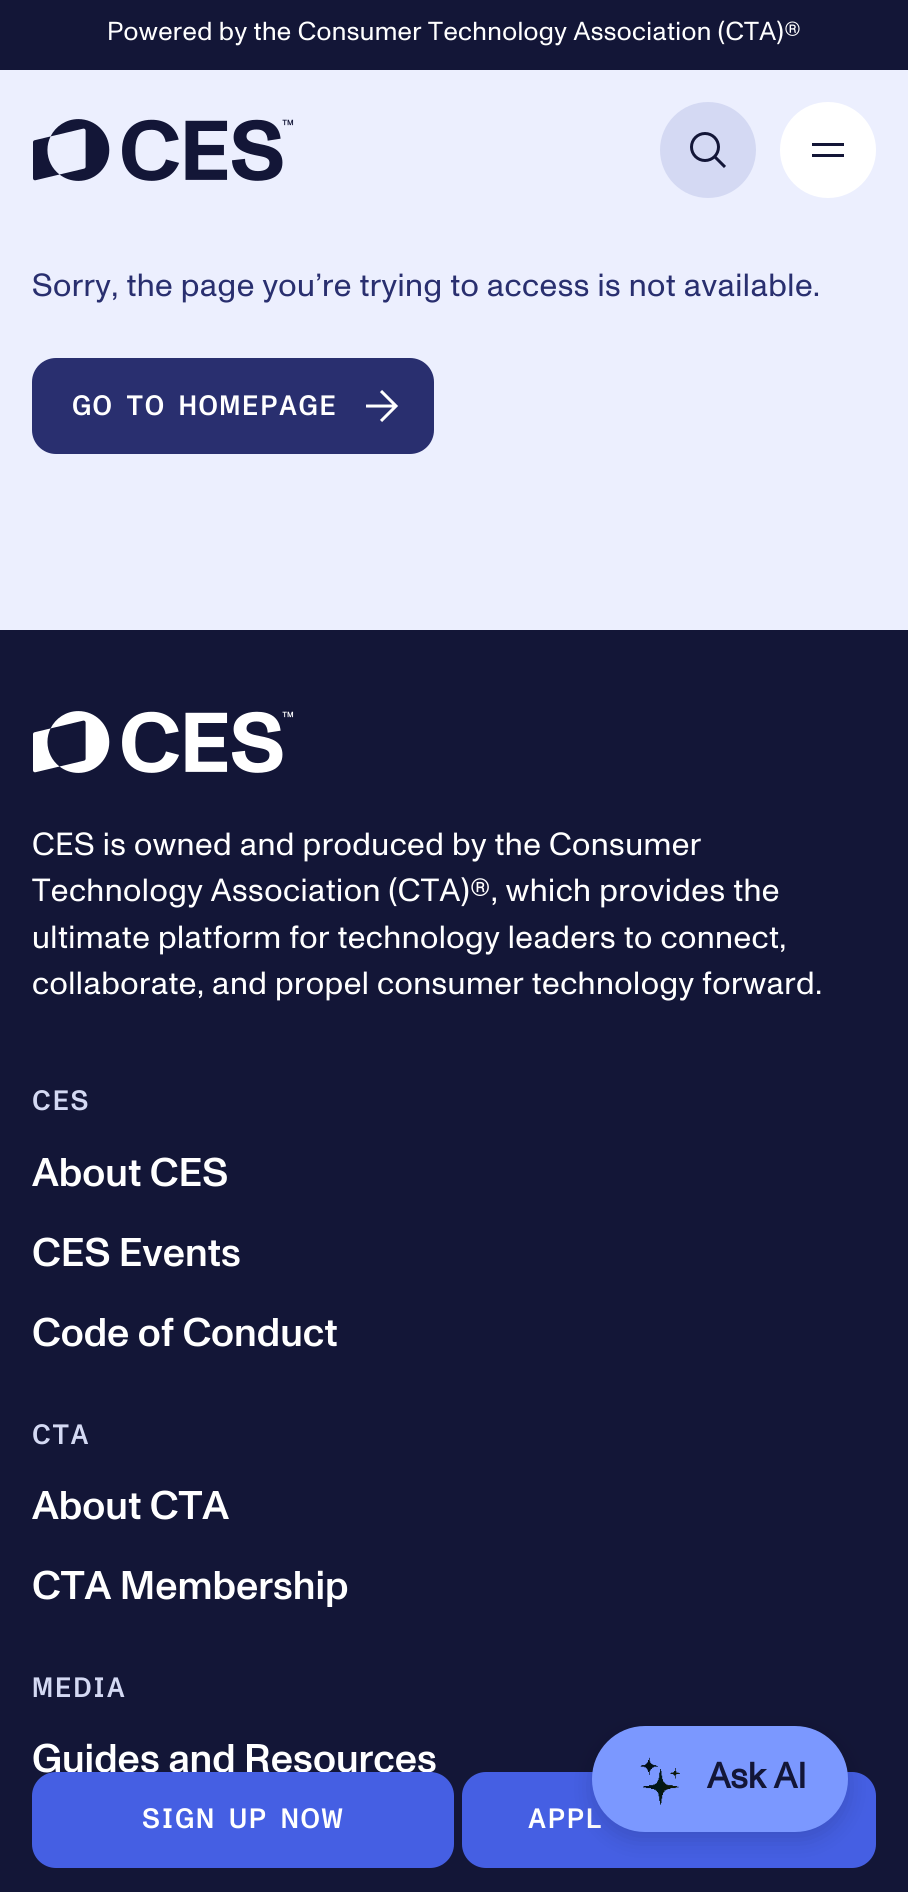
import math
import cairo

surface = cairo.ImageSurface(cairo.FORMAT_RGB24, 908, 1892)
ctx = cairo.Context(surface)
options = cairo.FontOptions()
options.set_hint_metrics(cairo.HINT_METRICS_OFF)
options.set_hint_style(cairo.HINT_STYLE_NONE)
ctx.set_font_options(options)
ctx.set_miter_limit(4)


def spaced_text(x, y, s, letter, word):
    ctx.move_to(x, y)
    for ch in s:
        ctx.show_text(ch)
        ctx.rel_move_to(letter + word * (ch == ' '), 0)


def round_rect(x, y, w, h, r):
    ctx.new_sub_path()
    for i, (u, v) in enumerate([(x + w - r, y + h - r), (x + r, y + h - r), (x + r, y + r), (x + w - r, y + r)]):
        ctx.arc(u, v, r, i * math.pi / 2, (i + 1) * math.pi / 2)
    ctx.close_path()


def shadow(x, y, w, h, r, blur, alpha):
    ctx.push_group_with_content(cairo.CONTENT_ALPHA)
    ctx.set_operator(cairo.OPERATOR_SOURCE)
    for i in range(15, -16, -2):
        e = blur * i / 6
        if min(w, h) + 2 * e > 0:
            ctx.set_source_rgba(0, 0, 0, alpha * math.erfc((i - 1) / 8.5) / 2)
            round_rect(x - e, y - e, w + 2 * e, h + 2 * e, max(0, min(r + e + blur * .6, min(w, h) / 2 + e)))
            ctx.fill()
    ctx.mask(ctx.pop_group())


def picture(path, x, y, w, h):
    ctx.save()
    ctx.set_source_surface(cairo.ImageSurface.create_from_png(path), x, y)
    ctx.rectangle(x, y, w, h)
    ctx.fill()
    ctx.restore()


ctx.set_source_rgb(0.925, 0.937, 0.996)
ctx.paint()
ctx.set_source_rgb(0.075, 0.086, 0.216)
ctx.rectangle(0, 0, 908, 70)
ctx.fill()
ctx.select_font_face("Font")
ctx.set_font_size(26)
ctx.set_source_rgb(1, 1, 1)
spaced_text(107, 40, "Powered by the Consumer Technology Association (CTA)®", 0.4, 0)
picture("img1.png", 33, 119, 261, 62)
ctx.set_source_rgb(0.831, 0.851, 0.953)
ctx.arc(708, 150, 48, 0, 2 * math.pi)
ctx.fill()
ctx.arc(705, 147, 13.5, 0, 2 * math.pi)
ctx.set_source_rgb(0.075, 0.086, 0.216)
ctx.set_line_width(3)
ctx.stroke()
ctx.new_path()
ctx.move_to(725, 167)
ctx.line_to(715, 157)
ctx.stroke()
ctx.set_source_rgb(1, 1, 1)
ctx.arc(828, 150, 48, 0, 2 * math.pi)
ctx.fill()
ctx.new_path()
ctx.move_to(812, 144.5)
ctx.line_to(844, 144.5)
ctx.move_to(812, 155.5)
ctx.line_to(844, 155.5)
ctx.set_source_rgb(0.075, 0.086, 0.216)
ctx.stroke()
ctx.rectangle(0, 630, 908, 1262)
ctx.fill()
ctx.select_font_face("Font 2 Medium")
ctx.set_font_size(40)
ctx.set_source_rgb(1, 1, 1)
ctx.move_to(32, 1772)
ctx.show_text("Guides and Resources")
ctx.set_source_rgb(0.271, 0.373, 0.89)
round_rect(32, 1772, 422, 96, 24)
ctx.fill()
ctx.select_font_face("Font Medium")
ctx.set_font_size(28)
ctx.set_source_rgb(1, 1, 1)
spaced_text(142, 1828, "SIGN UP NOW", 1.4, 0)
ctx.set_source_rgb(0.271, 0.373, 0.89)
round_rect(462, 1772, 414, 96, 24)
ctx.fill()
ctx.set_source_rgb(1, 1, 1)
spaced_text(528, 1828, "APPL", 1.4, 0)
ctx.select_font_face("Font")
ctx.set_font_size(32)
ctx.set_source_rgb(0.161, 0.184, 0.435)
spaced_text(32, 296, "Sorry, the page you’re trying to access is not available.", 0.48, 0)
round_rect(32, 358, 402, 96, 24)
ctx.fill()
ctx.select_font_face("Font Medium")
ctx.set_font_size(28)
ctx.set_source_rgb(1, 1, 1)
spaced_text(72, 415, "GO TO HOMEPAGE", 1.4, 0)
ctx.new_path()
ctx.move_to(381, 391)
ctx.line_to(396, 406)
ctx.line_to(381, 421)
ctx.move_to(396, 406)
ctx.line_to(366, 406)
ctx.stroke()
picture("img2.png", 33, 711, 261, 62)
ctx.select_font_face("Font")
ctx.set_font_size(32)
spaced_text(32, 855, "CES is owned and produced by the Consumer", 0.48, 0)
spaced_text(32, 901, "Technology Association (CTA)®, which provides the", 0.48, 0)
spaced_text(32, 948, "ultimate platform for technology leaders to connect,", 0.48, 0)
spaced_text(32, 994, "collaborate, and propel consumer technology forward.", 0.48, 0)
ctx.select_font_face("Font Medium")
ctx.set_font_size(28)
ctx.set_source_rgb(0.831, 0.851, 0.953)
spaced_text(32, 1110, "CES", 1.4, 0)
ctx.select_font_face("Font 2 Medium")
ctx.set_font_size(40)
ctx.set_source_rgb(1, 1, 1)
ctx.move_to(32, 1186)
ctx.show_text("About CES")
ctx.move_to(32, 1266)
ctx.show_text("CES Events")
ctx.move_to(32, 1346)
ctx.show_text("Code of Conduct")
ctx.select_font_face("Font Medium")
ctx.set_font_size(28)
ctx.set_source_rgb(0.831, 0.851, 0.953)
spaced_text(32, 1444, "CTA", 1.4, 0)
ctx.select_font_face("Font 2 Medium")
ctx.set_font_size(40)
ctx.set_source_rgb(1, 1, 1)
ctx.move_to(32, 1519)
ctx.show_text("About CTA")
ctx.move_to(32, 1599)
ctx.show_text("CTA Membership")
ctx.select_font_face("Font Medium")
ctx.set_font_size(28)
ctx.set_source_rgb(0.831, 0.851, 0.953)
spaced_text(32, 1697, "MEDIA", 1.4, 0)
ctx.set_source_rgb(0, 0, 0)
shadow(592, 1734, 256, 106, 53, 12, 0.15)
ctx.set_source_rgb(0.482, 0.596, 1)
round_rect(593, 1727, 254, 104, 52)
ctx.fill_preserve()
ctx.set_line_width(2)
ctx.stroke()
picture("img3.png", 640, 1757, 40, 48)
ctx.select_font_face("Font", cairo.FONT_SLANT_NORMAL, cairo.FONT_WEIGHT_BOLD)
ctx.set_font_size(36)
ctx.set_source_rgb(0.075, 0.086, 0.216)
ctx.move_to(707, 1788)
ctx.show_text("Ask AI")
surface.write_to_png("page.png")
